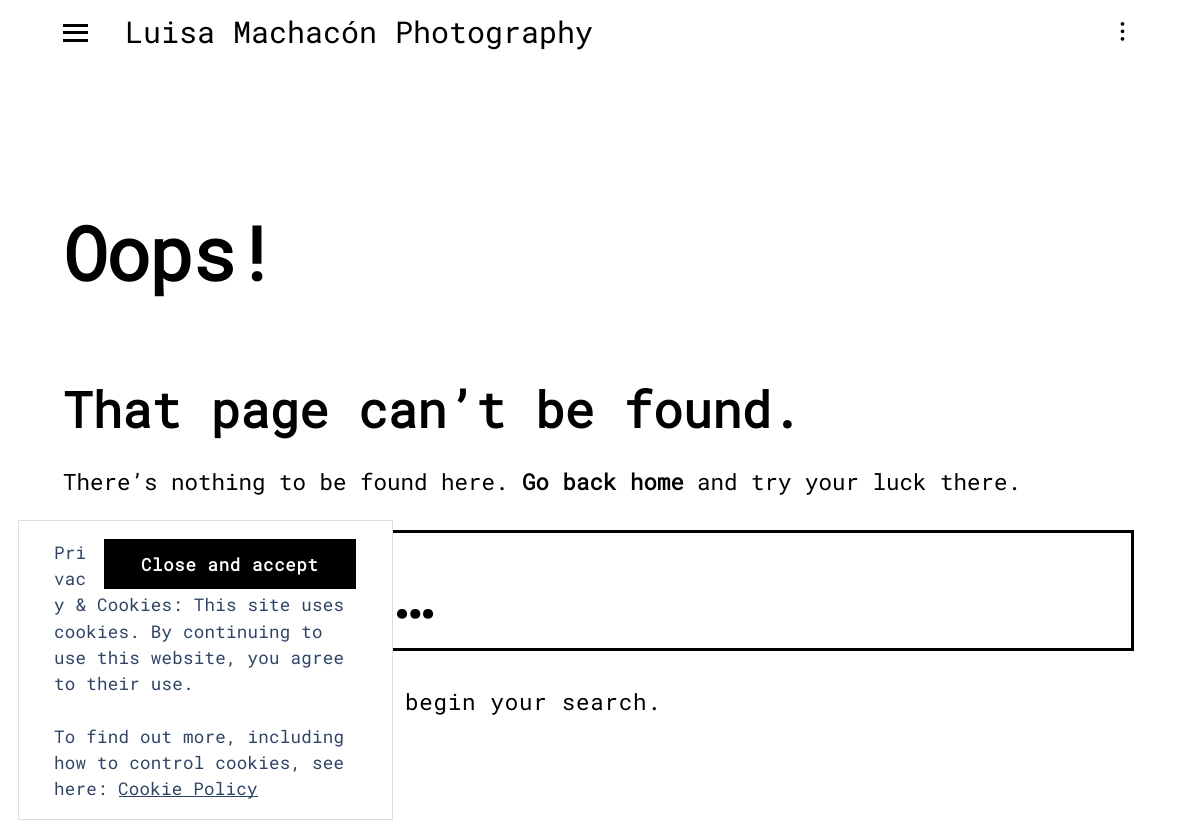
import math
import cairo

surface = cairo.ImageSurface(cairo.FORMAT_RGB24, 1196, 837)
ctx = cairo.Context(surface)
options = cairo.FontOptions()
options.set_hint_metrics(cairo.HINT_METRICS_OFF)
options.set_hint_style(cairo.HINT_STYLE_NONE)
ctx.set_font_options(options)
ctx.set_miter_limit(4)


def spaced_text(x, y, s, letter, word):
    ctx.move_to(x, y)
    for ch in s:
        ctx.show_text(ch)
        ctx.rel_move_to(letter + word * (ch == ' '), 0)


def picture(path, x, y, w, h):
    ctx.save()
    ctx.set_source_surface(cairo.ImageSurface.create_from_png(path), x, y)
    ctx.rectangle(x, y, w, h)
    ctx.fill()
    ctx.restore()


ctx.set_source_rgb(1, 1, 1)
ctx.paint()
ctx.set_source_rgb(0, 0, 0)
ctx.rectangle(63, 31, 25, 3)
ctx.fill()
ctx.rectangle(63, 24, 25, 3)
ctx.fill()
ctx.rectangle(63, 39, 25, 3)
ctx.fill()
ctx.select_font_face("Roboto Mono")
ctx.set_font_size(30)
ctx.move_to(125, 43)
ctx.show_text("Luisa Machacón Photography")
picture("img1.png", 1120, 22, 5, 19)
ctx.select_font_face("Roboto Mono", cairo.FONT_SLANT_NORMAL, cairo.FONT_WEIGHT_BOLD)
ctx.set_font_size(75)
spaced_text(63, 281, "Oops!", -2.25, 0)
ctx.set_font_size(50)
spaced_text(63, 428, "That page can’t be found.", -0.5, 0)
ctx.select_font_face("Roboto Mono")
ctx.set_font_size(22.5)
ctx.move_to(63, 490)
ctx.show_text("There’s nothing to be found here.")
ctx.select_font_face("Roboto Mono", cairo.FONT_SLANT_NORMAL, cairo.FONT_WEIGHT_BOLD)
ctx.move_to(522, 490)
ctx.show_text("Go back home")
ctx.select_font_face("Roboto Mono")
ctx.move_to(697, 490)
ctx.show_text("and try your luck there.")
ctx.rectangle(64.5, 531.5, 1068, 118)
ctx.set_line_width(3)
ctx.stroke()
ctx.set_font_size(70)
spaced_text(388, 618, "…", 0.6, 0)
ctx.set_font_size(22.5)
spaced_text(405, 710, "begin your search.", 0.75, 0)
ctx.set_source_rgb(1, 1, 1)
ctx.rectangle(63, 530, 329, 121)
ctx.fill()
ctx.rectangle(18.5, 520.5, 374, 299)
ctx.set_source_rgb(0.871, 0.871, 0.871)
ctx.set_line_width(1)
ctx.stroke()
ctx.set_font_size(17.5)
ctx.set_source_rgb(0.18, 0.267, 0.404)
spaced_text(54, 559, "Pri", 0.25, 0)
ctx.set_source_rgb(0, 0, 0)
ctx.rectangle(104, 539, 252, 50)
ctx.fill()
ctx.select_font_face("Roboto Mono", cairo.FONT_SLANT_NORMAL, cairo.FONT_WEIGHT_BOLD)
ctx.set_source_rgb(1, 1, 1)
spaced_text(141, 571, "Close and accept", 0.6, 0)
ctx.select_font_face("Roboto Mono")
ctx.set_source_rgb(0.18, 0.267, 0.404)
spaced_text(54, 585, "vac", 0.25, 0)
spaced_text(54, 611, "y & Cookies: This site uses", 0.25, 0)
spaced_text(54, 638, "cookies. By continuing to", 0.25, 0)
spaced_text(54, 664, "use this website, you agree", 0.25, 0)
spaced_text(54, 690, "to their use.", 0.25, 0)
spaced_text(54, 743, "To find out more, including", 0.25, 0)
spaced_text(54, 769, "how to control cookies, see", 0.25, 0)
spaced_text(54, 795, "here:", 0.25, 0)
ctx.rectangle(119, 796, 139, 1)
ctx.fill()
spaced_text(118, 795, "Cookie Policy", 0.25, 0)
surface.write_to_png("page.png")
